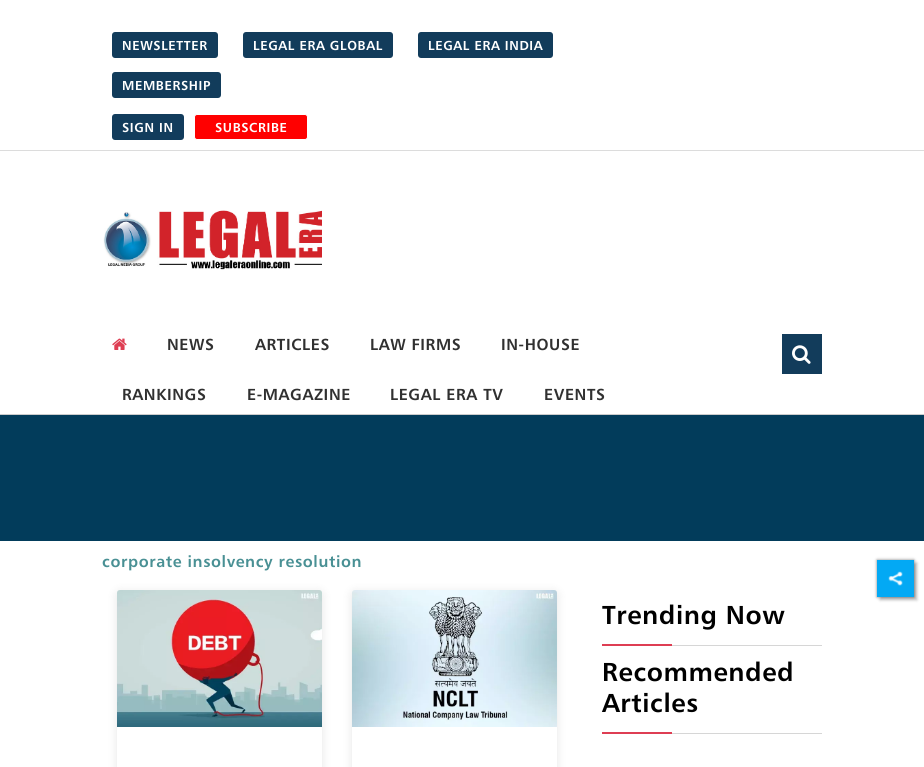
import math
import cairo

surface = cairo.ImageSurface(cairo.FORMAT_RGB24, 924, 767)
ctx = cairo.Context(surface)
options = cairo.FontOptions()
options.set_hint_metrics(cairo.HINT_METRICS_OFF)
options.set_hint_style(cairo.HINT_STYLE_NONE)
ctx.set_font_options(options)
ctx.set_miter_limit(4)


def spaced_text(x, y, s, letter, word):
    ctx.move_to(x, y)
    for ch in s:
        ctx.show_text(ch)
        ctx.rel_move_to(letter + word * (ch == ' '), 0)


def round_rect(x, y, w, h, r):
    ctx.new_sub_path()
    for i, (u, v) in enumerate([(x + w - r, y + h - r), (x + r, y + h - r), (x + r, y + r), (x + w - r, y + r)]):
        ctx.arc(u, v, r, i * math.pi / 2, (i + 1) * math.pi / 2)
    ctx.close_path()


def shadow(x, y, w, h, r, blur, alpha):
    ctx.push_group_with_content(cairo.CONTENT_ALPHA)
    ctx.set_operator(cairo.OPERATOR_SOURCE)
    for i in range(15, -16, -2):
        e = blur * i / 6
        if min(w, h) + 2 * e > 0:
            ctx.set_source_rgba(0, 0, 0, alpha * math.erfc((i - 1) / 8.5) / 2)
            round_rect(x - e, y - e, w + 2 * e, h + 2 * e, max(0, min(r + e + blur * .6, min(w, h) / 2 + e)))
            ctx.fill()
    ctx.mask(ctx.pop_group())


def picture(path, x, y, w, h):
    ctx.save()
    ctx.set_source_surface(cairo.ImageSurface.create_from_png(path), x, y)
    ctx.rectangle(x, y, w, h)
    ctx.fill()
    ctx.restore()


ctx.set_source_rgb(1, 1, 1)
ctx.paint()
ctx.set_source_rgb(0.8, 0.8, 0.8)
ctx.rectangle(0, 414, 924, 1)
ctx.fill()
ctx.set_source_rgb(0.863, 0.863, 0.863)
ctx.rectangle(0, 150, 924, 1)
ctx.fill()
ctx.set_source_rgb(0.071, 0.235, 0.357)
round_rect(112, 32, 106, 26, 3)
ctx.fill()
ctx.select_font_face("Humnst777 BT", cairo.FONT_SLANT_NORMAL, cairo.FONT_WEIGHT_BOLD)
ctx.set_font_size(13)
ctx.set_source_rgb(1, 1, 1)
spaced_text(122, 50, "NEWSLETTER", 0.6, 0)
ctx.set_source_rgb(0.071, 0.235, 0.357)
round_rect(243, 32, 150, 26, 3)
ctx.fill()
ctx.set_source_rgb(1, 1, 1)
spaced_text(253, 50, "LEGAL ERA GLOBAL", 0.6, 0)
ctx.set_source_rgb(0.071, 0.235, 0.357)
round_rect(418, 32, 135, 26, 3)
ctx.fill()
ctx.set_source_rgb(1, 1, 1)
spaced_text(428, 50, "LEGAL ERA INDIA", 0.6, 0)
ctx.set_source_rgb(0.071, 0.235, 0.357)
round_rect(112, 72, 109, 26, 3)
ctx.fill()
ctx.set_source_rgb(1, 1, 1)
spaced_text(122, 90, "MEMBERSHIP", 0.6, 0)
ctx.set_source_rgb(0.071, 0.235, 0.361)
round_rect(112, 114, 72, 26, 3)
ctx.fill()
ctx.set_source_rgb(1, 1, 1)
spaced_text(122, 132, "SIGN IN", 0.6, 0)
ctx.set_source_rgb(1, 0, 0)
round_rect(194.5, 114.5, 113, 25, 2.5)
ctx.fill_preserve()
ctx.set_source_rgb(1, 1, 1)
ctx.set_line_width(1)
ctx.stroke()
spaced_text(215, 132, "SUBSCRIBE", 0.6, 0)
picture("img1.png", 103, 210, 219, 60)
picture("img2.png", 112, 338, 15, 12)
ctx.set_font_size(16)
ctx.set_source_rgb(0.188, 0.188, 0.188)
spaced_text(167, 350, "NEWS", 0.6, 0)
spaced_text(255, 350, "ARTICLES", 0.6, 0)
spaced_text(370, 350, "LAW FIRMS", 0.6, 0)
spaced_text(501, 350, "IN-HOUSE", 0.6, 0)
spaced_text(122, 400, "RANKINGS", 0.6, 0)
spaced_text(247, 400, "E-MAGAZINE", 0.6, 0)
spaced_text(390, 400, "LEGAL ERA TV", 0.6, 0)
spaced_text(544, 400, "EVENTS", 0.6, 0)
ctx.set_source_rgb(0.071, 0.235, 0.357)
ctx.rectangle(782, 334, 40, 40)
ctx.fill()
picture("img3.png", 792, 345, 19, 19)
ctx.set_source_rgb(0.008, 0.235, 0.357)
ctx.rectangle(0, 415, 924, 126)
ctx.fill()
ctx.set_source_rgb(0.286, 0.565, 0.58)
spaced_text(102, 567, "corporate insolvency resolution", 0.6, 0)
ctx.save()
ctx.set_fill_rule(cairo.FILL_RULE_EVEN_ODD)
ctx.new_path()
ctx.move_to(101, 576)
ctx.line_to(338, 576)
ctx.line_to(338, 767)
ctx.line_to(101, 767)
ctx.close_path()
ctx.move_to(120, 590)
ctx.line_to(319, 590)
ctx.curve_to(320.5, 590, 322, 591.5, 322, 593)
ctx.line_to(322, 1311)
ctx.curve_to(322, 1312.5, 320.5, 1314, 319, 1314)
ctx.line_to(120, 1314)
ctx.curve_to(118.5, 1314, 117, 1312.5, 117, 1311)
ctx.line_to(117, 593)
ctx.curve_to(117, 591.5, 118.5, 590, 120, 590)
ctx.close_path()
ctx.clip()
ctx.set_source_rgb(0, 0, 0)
shadow(117, 592, 205, 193, 3, 5, 0.1)
ctx.restore()
picture("img4.png", 117, 590, 205, 137)
ctx.save()
ctx.set_fill_rule(cairo.FILL_RULE_EVEN_ODD)
ctx.new_path()
ctx.move_to(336, 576)
ctx.line_to(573, 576)
ctx.line_to(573, 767)
ctx.line_to(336, 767)
ctx.close_path()
ctx.move_to(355, 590)
ctx.line_to(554, 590)
ctx.curve_to(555.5, 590, 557, 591.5, 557, 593)
ctx.line_to(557, 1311)
ctx.curve_to(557, 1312.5, 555.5, 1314, 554, 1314)
ctx.line_to(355, 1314)
ctx.curve_to(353.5, 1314, 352, 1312.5, 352, 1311)
ctx.line_to(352, 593)
ctx.curve_to(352, 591.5, 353.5, 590, 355, 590)
ctx.close_path()
ctx.clip()
ctx.set_source_rgb(0, 0, 0)
shadow(352, 592, 205, 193, 3, 5, 0.1)
ctx.restore()
picture("img5.png", 352, 590, 205, 137)
ctx.set_source_rgb(0.839, 0.839, 0.839)
ctx.rectangle(672, 645, 150, 1)
ctx.fill()
ctx.set_font_size(26)
ctx.set_source_rgb(0, 0, 0)
spaced_text(602, 624, "Trending Now", 0.6, 0)
ctx.set_source_rgb(0.871, 0.243, 0.325)
ctx.rectangle(602, 644, 70, 2)
ctx.fill()
ctx.set_source_rgb(0.839, 0.839, 0.839)
ctx.rectangle(672, 733, 150, 1)
ctx.fill()
ctx.set_source_rgb(0, 0, 0)
spaced_text(602, 681, "Recommended", 0.6, 0)
spaced_text(602, 712, "Articles", 0.6, 0)
ctx.set_source_rgb(0.871, 0.243, 0.325)
ctx.rectangle(602, 732, 70, 2)
ctx.fill()
ctx.set_source_rgb(0, 0, 0)
shadow(880, 563, 37, 37, 0, 1.5, 0.25)
shadow(877, 560, 37, 37, 0, 1.5, 0.5)
ctx.set_source_rgb(0.012, 0.663, 0.957)
ctx.rectangle(877, 560, 37, 37)
ctx.fill()
picture("img6.png", 888, 571, 15, 15)
surface.write_to_png("page.png")
